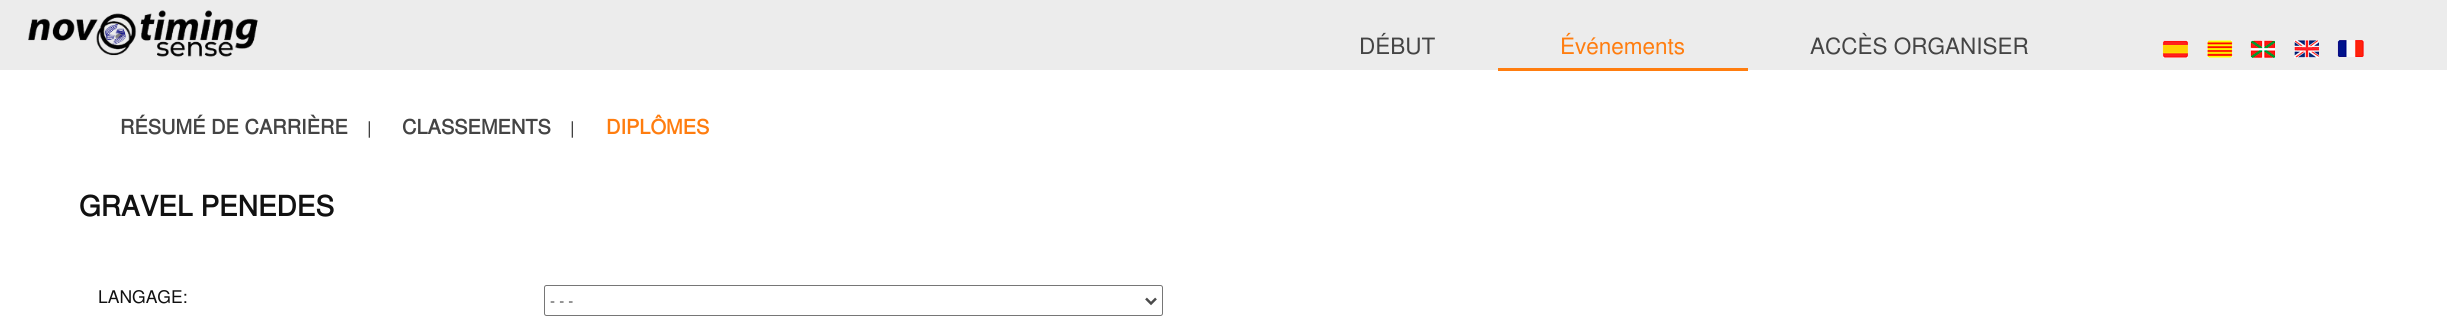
import math
import cairo

surface = cairo.ImageSurface(cairo.FORMAT_RGB24, 2447, 320)
ctx = cairo.Context(surface)
options = cairo.FontOptions()
options.set_hint_metrics(cairo.HINT_METRICS_OFF)
options.set_hint_style(cairo.HINT_STYLE_NONE)
ctx.set_font_options(options)
ctx.set_miter_limit(4)


def round_rect(x, y, w, h, r):
    ctx.new_sub_path()
    for i, (u, v) in enumerate([(x + w - r, y + h - r), (x + r, y + h - r), (x + r, y + r), (x + w - r, y + r)]):
        ctx.arc(u, v, r, i * math.pi / 2, (i + 1) * math.pi / 2)
    ctx.close_path()


def picture(path, x, y, w, h):
    ctx.save()
    ctx.set_source_surface(cairo.ImageSurface.create_from_png(path), x, y)
    ctx.rectangle(x, y, w, h)
    ctx.fill()
    ctx.restore()


ctx.set_source_rgb(1, 1, 1)
ctx.paint()
ctx.set_source_rgb(0.925, 0.925, 0.925)
ctx.rectangle(0, 0, 2447, 70)
ctx.fill()
picture("img1.png", 28, 10, 230, 47)
ctx.select_font_face("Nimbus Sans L")
ctx.set_font_size(22.5)
ctx.set_source_rgb(0.267, 0.267, 0.267)
ctx.move_to(1359, 54)
ctx.show_text("DÉBUT")
ctx.set_source_rgb(1, 0.49, 0.059)
ctx.rectangle(1498, 68, 250, 3)
ctx.fill()
ctx.move_to(1560, 54)
ctx.show_text("Événements")
ctx.set_source_rgb(0.267, 0.267, 0.267)
ctx.move_to(1810, 54)
ctx.show_text("ACCÈS ORGANISER")
picture("img2.png", 2162, 40, 26, 18)
picture("img3.png", 2207, 40, 26, 18)
picture("img4.png", 2250, 40, 25, 18)
picture("img5.png", 2294, 40, 25, 18)
picture("img6.png", 2337, 40, 27, 17)
ctx.select_font_face("Nimbus Sans L", cairo.FONT_SLANT_NORMAL, cairo.FONT_WEIGHT_BOLD)
ctx.set_font_size(20)
ctx.move_to(120, 134)
ctx.show_text("RÉSUMÉ DE CARRIÈRE")
ctx.select_font_face("Nimbus Sans L")
ctx.set_font_size(17.5)
ctx.set_source_rgb(0.067, 0.067, 0.067)
ctx.move_to(367, 134)
ctx.show_text("|")
ctx.select_font_face("Nimbus Sans L", cairo.FONT_SLANT_NORMAL, cairo.FONT_WEIGHT_BOLD)
ctx.set_font_size(20)
ctx.set_source_rgb(0.267, 0.267, 0.267)
ctx.move_to(402, 134)
ctx.show_text("CLASSEMENTS")
ctx.select_font_face("Nimbus Sans L")
ctx.set_font_size(17.5)
ctx.set_source_rgb(0.067, 0.067, 0.067)
ctx.move_to(570, 134)
ctx.show_text("|")
ctx.select_font_face("Nimbus Sans L", cairo.FONT_SLANT_NORMAL, cairo.FONT_WEIGHT_BOLD)
ctx.set_font_size(20)
ctx.set_source_rgb(1, 0.49, 0.059)
ctx.move_to(606, 134)
ctx.show_text("DIPLÔMES")
ctx.set_font_size(28)
ctx.set_source_rgb(0.067, 0.067, 0.067)
ctx.move_to(79, 216)
ctx.show_text("GRAVEL PENEDES")
ctx.select_font_face("Nimbus Sans L")
ctx.set_font_size(17.5)
ctx.move_to(98, 303)
ctx.show_text("LANGAGE:")
round_rect(544.5, 285.5, 618, 30, 2)
ctx.set_source_rgb(0.463, 0.463, 0.463)
ctx.set_line_width(1)
ctx.stroke()
ctx.new_path()
ctx.move_to(1146, 298.5)
ctx.line_to(1151, 303.5)
ctx.line_to(1156, 298.5)
ctx.set_source_rgb(0.294, 0.294, 0.294)
ctx.set_line_width(2.5)
ctx.stroke()
ctx.select_font_face("Liberation Sans")
ctx.set_font_size(15)
ctx.move_to(550, 306)
ctx.show_text("- - -")
surface.write_to_png("page.png")
